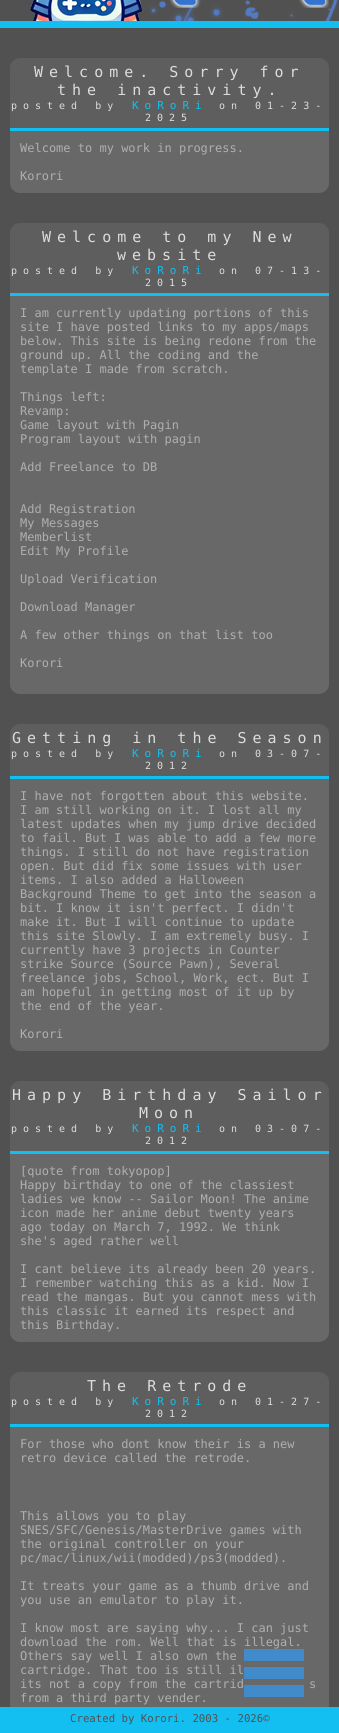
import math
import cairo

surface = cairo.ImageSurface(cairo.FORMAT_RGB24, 339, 1733)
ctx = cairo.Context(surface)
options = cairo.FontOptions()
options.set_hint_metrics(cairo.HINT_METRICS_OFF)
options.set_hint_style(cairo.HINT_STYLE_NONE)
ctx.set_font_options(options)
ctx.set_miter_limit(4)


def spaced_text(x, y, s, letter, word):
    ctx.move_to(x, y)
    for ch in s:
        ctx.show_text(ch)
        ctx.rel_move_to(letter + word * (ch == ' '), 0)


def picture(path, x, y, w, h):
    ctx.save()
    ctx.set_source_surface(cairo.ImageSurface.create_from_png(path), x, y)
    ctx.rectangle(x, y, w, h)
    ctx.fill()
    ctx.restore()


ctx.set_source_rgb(0.318, 0.318, 0.318)
ctx.paint()
ctx.set_source_rgb(0.078, 0.745, 0.945)
ctx.rectangle(0, 21, 339, 7)
ctx.fill()
picture("img1.png", 30, 0, 308, 21)
picture("img2.png", 169, 0, 160, 8)
ctx.set_source_rgb(0.369, 0.369, 0.369)
ctx.new_path()
ctx.move_to(20, 58)
ctx.line_to(319, 58)
ctx.curve_to(324.5, 58, 329, 62.5, 329, 68)
ctx.line_to(329, 131)
ctx.line_to(10, 131)
ctx.line_to(10, 68)
ctx.curve_to(10, 62.5, 14.5, 58, 20, 58)
ctx.close_path()
ctx.fill()
ctx.set_source_rgb(0.078, 0.745, 0.945)
ctx.rectangle(10, 128, 319, 3)
ctx.fill()
ctx.select_font_face("DejaVu Sans Mono")
ctx.set_font_size(15)
ctx.set_source_rgb(0.867, 0.867, 0.867)
spaced_text(34, 77, "Welcome. Sorry for", 6, 0)
spaced_text(57, 95, "the inactivity.", 6, 0)
ctx.set_font_size(10)
spaced_text(11, 109, "posted by", 6, 0)
ctx.set_font_size(11)
ctx.set_source_rgb(0.082, 0.745, 0.941)
spaced_text(132, 109, "KoRoRi", 6, 0)
ctx.set_font_size(10)
ctx.set_source_rgb(0.867, 0.867, 0.867)
spaced_text(219, 109, "on 01-23-", 6, 0)
spaced_text(145, 121, "2025", 6, 0)
ctx.set_source_rgb(0.408, 0.408, 0.408)
ctx.new_path()
ctx.move_to(10, 131)
ctx.line_to(329, 131)
ctx.line_to(329, 183)
ctx.curve_to(329, 188.5, 324.5, 193, 319, 193)
ctx.line_to(20, 193)
ctx.curve_to(14.5, 193, 10, 188.5, 10, 183)
ctx.close_path()
ctx.fill()
ctx.set_font_size(12)
ctx.set_source_rgb(0.686, 0.686, 0.686)
ctx.move_to(20, 152)
ctx.show_text("Welcome to my work in progress.")
ctx.move_to(20, 180)
ctx.show_text("Korori")
ctx.set_source_rgb(0.369, 0.369, 0.369)
ctx.new_path()
ctx.move_to(20, 223)
ctx.line_to(319, 223)
ctx.curve_to(324.5, 223, 329, 227.5, 329, 233)
ctx.line_to(329, 296)
ctx.line_to(10, 296)
ctx.line_to(10, 233)
ctx.curve_to(10, 227.5, 14.5, 223, 20, 223)
ctx.close_path()
ctx.fill()
ctx.set_source_rgb(0.078, 0.745, 0.945)
ctx.rectangle(10, 293, 319, 3)
ctx.fill()
ctx.set_font_size(15)
ctx.set_source_rgb(0.867, 0.867, 0.867)
spaced_text(42, 242, "Welcome to my New", 6, 0)
spaced_text(117, 260, "website", 6, 0)
ctx.set_font_size(10)
spaced_text(11, 274, "posted by", 6, 0)
ctx.set_font_size(11)
ctx.set_source_rgb(0.082, 0.745, 0.941)
spaced_text(132, 274, "KoRoRi", 6, 0)
ctx.set_font_size(10)
ctx.set_source_rgb(0.867, 0.867, 0.867)
spaced_text(219, 274, "on 07-13-", 6, 0)
spaced_text(145, 286, "2015", 6, 0)
ctx.set_source_rgb(0.408, 0.408, 0.408)
ctx.new_path()
ctx.move_to(10, 296)
ctx.line_to(329, 296)
ctx.line_to(329, 684)
ctx.curve_to(329, 689.5, 324.5, 694, 319, 694)
ctx.line_to(20, 694)
ctx.curve_to(14.5, 694, 10, 689.5, 10, 684)
ctx.close_path()
ctx.fill()
ctx.set_font_size(12)
ctx.set_source_rgb(0.686, 0.686, 0.686)
ctx.move_to(20, 317)
ctx.show_text("I am currently updating portions of this")
ctx.move_to(20, 331)
ctx.show_text("site I have posted links to my apps/maps")
ctx.move_to(20, 345)
ctx.show_text("below. This site is being redone from the")
ctx.move_to(20, 359)
ctx.show_text("ground up. All the coding and the")
ctx.move_to(20, 373)
ctx.show_text("template I made from scratch.")
ctx.move_to(20, 401)
ctx.show_text("Things left:")
ctx.move_to(20, 415)
ctx.show_text("Revamp:")
ctx.move_to(20, 429)
ctx.show_text("Game layout with Pagin")
ctx.move_to(20, 443)
ctx.show_text("Program layout with pagin")
ctx.move_to(20, 471)
ctx.show_text("Add Freelance to DB")
ctx.move_to(20, 513)
ctx.show_text("Add Registration")
ctx.move_to(20, 527)
ctx.show_text("My Messages")
ctx.move_to(20, 541)
ctx.show_text("Memberlist")
ctx.move_to(20, 555)
ctx.show_text("Edit My Profile")
ctx.move_to(20, 583)
ctx.show_text("Upload Verification")
ctx.move_to(20, 611)
ctx.show_text("Download Manager")
ctx.move_to(20, 639)
ctx.show_text("A few other things on that list too")
ctx.move_to(20, 667)
ctx.show_text("Korori")
ctx.set_source_rgb(0.369, 0.369, 0.369)
ctx.new_path()
ctx.move_to(20, 724)
ctx.line_to(319, 724)
ctx.curve_to(324.5, 724, 329, 728.5, 329, 734)
ctx.line_to(329, 779)
ctx.line_to(10, 779)
ctx.line_to(10, 734)
ctx.curve_to(10, 728.5, 14.5, 724, 20, 724)
ctx.close_path()
ctx.fill()
ctx.set_source_rgb(0.078, 0.745, 0.945)
ctx.rectangle(10, 776, 319, 3)
ctx.fill()
ctx.set_font_size(15)
ctx.set_source_rgb(0.867, 0.867, 0.867)
spaced_text(12, 743, "Getting in the Season", 6, 0)
ctx.set_font_size(10)
spaced_text(11, 757, "posted by", 6, 0)
ctx.set_font_size(11)
ctx.set_source_rgb(0.082, 0.745, 0.941)
spaced_text(132, 757, "KoRoRi", 6, 0)
ctx.set_font_size(10)
ctx.set_source_rgb(0.867, 0.867, 0.867)
spaced_text(219, 757, "on 03-07-", 6, 0)
spaced_text(145, 769, "2012", 6, 0)
ctx.set_source_rgb(0.408, 0.408, 0.408)
ctx.new_path()
ctx.move_to(10, 779)
ctx.line_to(329, 779)
ctx.line_to(329, 1041)
ctx.curve_to(329, 1046.5, 324.5, 1051, 319, 1051)
ctx.line_to(20, 1051)
ctx.curve_to(14.5, 1051, 10, 1046.5, 10, 1041)
ctx.close_path()
ctx.fill()
ctx.set_font_size(12)
ctx.set_source_rgb(0.686, 0.686, 0.686)
ctx.move_to(20, 800)
ctx.show_text("I have not forgotten about this website.")
ctx.move_to(20, 814)
ctx.show_text("I am still working on it. I lost all my")
ctx.move_to(20, 828)
ctx.show_text("latest updates when my jump drive decided")
ctx.move_to(20, 842)
ctx.show_text("to fail. But I was able to add a few more")
ctx.move_to(20, 856)
ctx.show_text("things. I still do not have registration")
ctx.move_to(20, 870)
ctx.show_text("open. But did fix some issues with user")
ctx.move_to(20, 884)
ctx.show_text("items. I also added a Halloween")
ctx.move_to(20, 898)
ctx.show_text("Background Theme to get into the season a")
ctx.move_to(20, 912)
ctx.show_text("bit. I know it isn't perfect. I didn't")
ctx.move_to(20, 926)
ctx.show_text("make it. But I will continue to update")
ctx.move_to(20, 940)
ctx.show_text("this site Slowly. I am extremely busy. I")
ctx.move_to(20, 954)
ctx.show_text("currently have 3 projects in Counter")
ctx.move_to(20, 968)
ctx.show_text("strike Source (Source Pawn), Several")
ctx.move_to(20, 982)
ctx.show_text("freelance jobs, School, Work, ect. But I")
ctx.move_to(20, 996)
ctx.show_text("am hopeful in getting most of it up by")
ctx.move_to(20, 1010)
ctx.show_text("the end of the year.")
ctx.move_to(20, 1038)
ctx.show_text("Korori")
ctx.set_source_rgb(0.369, 0.369, 0.369)
ctx.new_path()
ctx.move_to(20, 1081)
ctx.line_to(319, 1081)
ctx.curve_to(324.5, 1081, 329, 1085.5, 329, 1091)
ctx.line_to(329, 1154)
ctx.line_to(10, 1154)
ctx.line_to(10, 1091)
ctx.curve_to(10, 1085.5, 14.5, 1081, 20, 1081)
ctx.close_path()
ctx.fill()
ctx.set_source_rgb(0.078, 0.745, 0.945)
ctx.rectangle(10, 1151, 319, 3)
ctx.fill()
ctx.set_font_size(15)
ctx.set_source_rgb(0.867, 0.867, 0.867)
spaced_text(12, 1100, "Happy Birthday Sailor", 6, 0)
spaced_text(139, 1118, "Moon", 6, 0)
ctx.set_font_size(10)
spaced_text(11, 1132, "posted by", 6, 0)
ctx.set_font_size(11)
ctx.set_source_rgb(0.082, 0.745, 0.941)
spaced_text(132, 1132, "KoRoRi", 6, 0)
ctx.set_font_size(10)
ctx.set_source_rgb(0.867, 0.867, 0.867)
spaced_text(219, 1132, "on 03-07-", 6, 0)
spaced_text(145, 1144, "2012", 6, 0)
ctx.set_source_rgb(0.408, 0.408, 0.408)
ctx.new_path()
ctx.move_to(10, 1154)
ctx.line_to(329, 1154)
ctx.line_to(329, 1332)
ctx.curve_to(329, 1337.5, 324.5, 1342, 319, 1342)
ctx.line_to(20, 1342)
ctx.curve_to(14.5, 1342, 10, 1337.5, 10, 1332)
ctx.close_path()
ctx.fill()
ctx.set_font_size(12)
ctx.set_source_rgb(0.686, 0.686, 0.686)
ctx.move_to(20, 1175)
ctx.show_text("[quote from tokyopop]")
ctx.move_to(20, 1189)
ctx.show_text("Happy birthday to one of the classiest")
ctx.move_to(20, 1203)
ctx.show_text("ladies we know -- Sailor Moon! The anime")
ctx.move_to(20, 1217)
ctx.show_text("icon made her anime debut twenty years")
ctx.move_to(20, 1231)
ctx.show_text("ago today on March 7, 1992. We think")
ctx.move_to(20, 1245)
ctx.show_text("she's aged rather well")
ctx.move_to(20, 1273)
ctx.show_text("I cant believe its already been 20 years.")
ctx.move_to(20, 1287)
ctx.show_text("I remember watching this as a kid. Now I")
ctx.move_to(20, 1301)
ctx.show_text("read the mangas. But you cannot mess with")
ctx.move_to(20, 1315)
ctx.show_text("this classic it earned its respect and")
ctx.move_to(20, 1329)
ctx.show_text("this Birthday.")
ctx.set_source_rgb(0.369, 0.369, 0.369)
ctx.new_path()
ctx.move_to(20, 1372)
ctx.line_to(319, 1372)
ctx.curve_to(324.5, 1372, 329, 1376.5, 329, 1382)
ctx.line_to(329, 1427)
ctx.line_to(10, 1427)
ctx.line_to(10, 1382)
ctx.curve_to(10, 1376.5, 14.5, 1372, 20, 1372)
ctx.close_path()
ctx.fill()
ctx.set_source_rgb(0.078, 0.745, 0.945)
ctx.rectangle(10, 1424, 319, 3)
ctx.fill()
ctx.set_font_size(15)
ctx.set_source_rgb(0.867, 0.867, 0.867)
spaced_text(87, 1391, "The Retrode", 6, 0)
ctx.set_font_size(10)
spaced_text(11, 1405, "posted by", 6, 0)
ctx.set_font_size(11)
ctx.set_source_rgb(0.082, 0.745, 0.941)
spaced_text(132, 1405, "KoRoRi", 6, 0)
ctx.set_font_size(10)
ctx.set_source_rgb(0.867, 0.867, 0.867)
spaced_text(219, 1405, "on 01-27-", 6, 0)
spaced_text(145, 1417, "2012", 6, 0)
ctx.set_source_rgb(0.408, 0.408, 0.408)
ctx.rectangle(10, 1427, 319, 280)
ctx.fill()
ctx.set_font_size(12)
ctx.set_source_rgb(0.686, 0.686, 0.686)
ctx.move_to(20, 1448)
ctx.show_text("For those who dont know their is a new")
ctx.move_to(20, 1462)
ctx.show_text("retro device called the retrode.")
ctx.move_to(20, 1520)
ctx.show_text("This allows you to play")
ctx.move_to(20, 1534)
ctx.show_text("SNES/SFC/Genesis/MasterDrive games with")
ctx.move_to(20, 1548)
ctx.show_text("the original controller on your")
ctx.move_to(20, 1562)
ctx.show_text("pc/mac/linux/wii(modded)/ps3(modded).")
ctx.move_to(20, 1590)
ctx.show_text("It treats your game as a thumb drive and")
ctx.move_to(20, 1604)
ctx.show_text("you use an emulator to play it.")
ctx.move_to(20, 1632)
ctx.show_text("I know most are saying why... I can just")
ctx.move_to(20, 1646)
ctx.show_text("download the rom. Well that is illegal.")
ctx.move_to(20, 1660)
ctx.show_text("Others say well I also own the")
ctx.move_to(20, 1674)
ctx.show_text("cartridge. That too is still il")
ctx.move_to(20, 1688)
ctx.show_text("its not a copy from the cartrid")
ctx.move_to(309, 1688)
ctx.show_text("s")
ctx.move_to(20, 1702)
ctx.show_text("from a third party vender.")
ctx.set_source_rgb(0.259, 0.545, 0.792)
ctx.rectangle(244, 1649, 60, 12)
ctx.fill()
ctx.rectangle(244, 1667, 60, 12)
ctx.fill()
ctx.rectangle(244, 1685, 60, 12)
ctx.fill()
ctx.set_source_rgb(0.078, 0.745, 0.945)
ctx.rectangle(0, 1707, 339, 26)
ctx.fill()
ctx.set_font_size(10.7)
ctx.set_source_rgb(0.318, 0.318, 0.318)
ctx.move_to(70, 1722)
ctx.show_text("Created by Korori. 2003 - 2026©")
surface.write_to_png("page.png")
